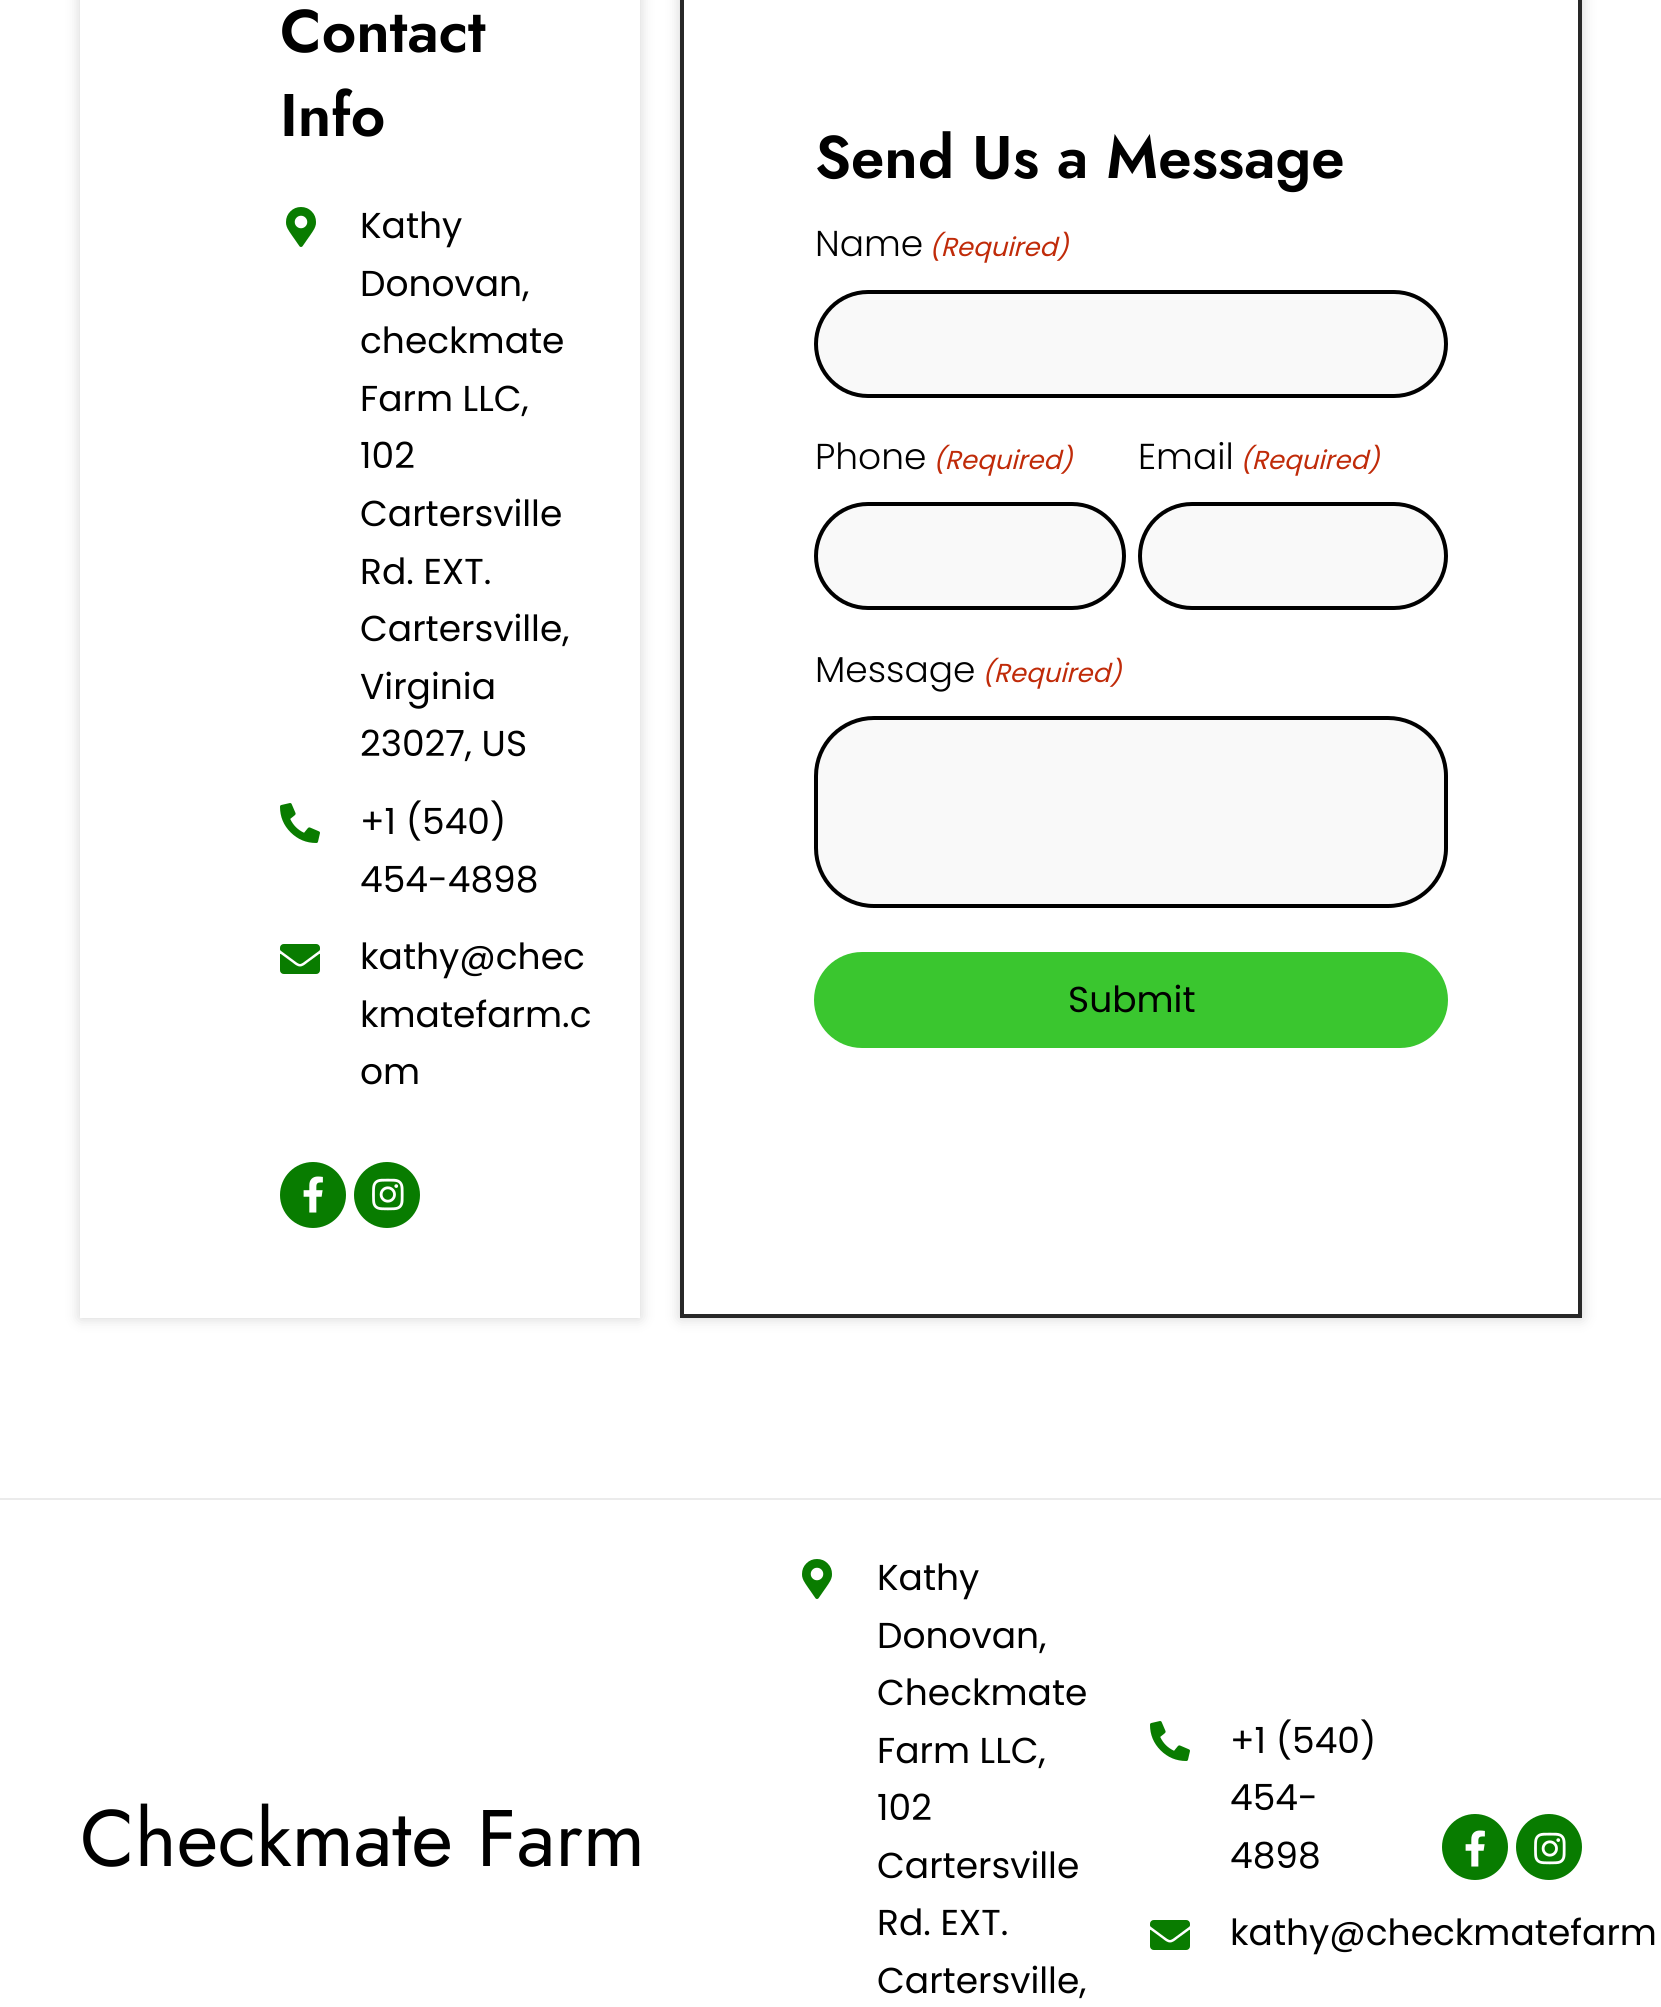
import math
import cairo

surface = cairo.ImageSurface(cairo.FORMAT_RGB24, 1661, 2007)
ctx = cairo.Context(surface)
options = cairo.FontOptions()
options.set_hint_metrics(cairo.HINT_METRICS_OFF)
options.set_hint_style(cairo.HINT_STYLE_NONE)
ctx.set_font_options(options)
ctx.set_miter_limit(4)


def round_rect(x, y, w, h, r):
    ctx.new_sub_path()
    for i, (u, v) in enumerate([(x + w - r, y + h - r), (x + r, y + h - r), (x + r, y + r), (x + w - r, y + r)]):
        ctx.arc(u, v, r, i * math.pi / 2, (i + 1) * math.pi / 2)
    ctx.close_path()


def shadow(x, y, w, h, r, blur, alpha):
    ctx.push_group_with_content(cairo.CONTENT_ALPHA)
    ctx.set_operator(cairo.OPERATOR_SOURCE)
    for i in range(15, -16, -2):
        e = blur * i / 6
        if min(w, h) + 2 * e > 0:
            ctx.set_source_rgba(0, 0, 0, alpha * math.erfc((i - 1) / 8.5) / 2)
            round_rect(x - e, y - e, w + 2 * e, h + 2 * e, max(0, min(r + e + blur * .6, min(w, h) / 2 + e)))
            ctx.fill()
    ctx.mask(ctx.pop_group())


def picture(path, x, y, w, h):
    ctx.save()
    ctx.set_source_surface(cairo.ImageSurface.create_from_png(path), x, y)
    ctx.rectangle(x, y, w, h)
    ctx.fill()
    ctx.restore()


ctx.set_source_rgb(1, 1, 1)
ctx.paint()
ctx.save()
ctx.set_fill_rule(cairo.FILL_RULE_EVEN_ODD)
ctx.new_path()
ctx.move_to(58, 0)
ctx.line_to(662, 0)
ctx.line_to(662, 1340)
ctx.line_to(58, 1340)
ctx.close_path()
ctx.move_to(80, -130)
ctx.line_to(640, -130)
ctx.line_to(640, 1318)
ctx.line_to(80, 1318)
ctx.close_path()
ctx.clip()
ctx.set_source_rgb(0.659, 0.659, 0.659)
shadow(80, -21, 560, 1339, 0, 7, 0.5)
ctx.restore()
ctx.select_font_face("Jost SemiBold")
ctx.set_font_size(60)
ctx.set_source_rgb(0, 0, 0)
ctx.move_to(280, 52)
ctx.show_text("Contact")
ctx.move_to(280, 136)
ctx.show_text("Info")
picture("img1.png", 286, 207, 30, 40)
ctx.select_font_face("Poppins")
ctx.set_font_size(36)
ctx.move_to(360, 238)
ctx.show_text("Kathy")
ctx.move_to(360, 296)
ctx.show_text("Donovan,")
ctx.move_to(360, 353)
ctx.show_text("checkmate")
ctx.move_to(360, 411)
ctx.show_text("Farm LLC,")
ctx.move_to(360, 468)
ctx.show_text("102")
ctx.move_to(360, 526)
ctx.show_text("Cartersville")
ctx.move_to(360, 584)
ctx.show_text("Rd. EXT.")
ctx.move_to(360, 641)
ctx.show_text("Cartersville,")
ctx.move_to(360, 699)
ctx.show_text("Virginia")
ctx.move_to(360, 756)
ctx.show_text("23027, US")
picture("img2.png", 280, 803, 40, 40)
ctx.move_to(360, 834)
ctx.show_text("+1 (540)")
ctx.move_to(360, 892)
ctx.show_text("454-4898")
picture("img3.png", 280, 944, 40, 30)
ctx.move_to(360, 969)
ctx.show_text("kathy@chec")
ctx.move_to(360, 1027)
ctx.show_text("kmatefarm.c")
ctx.move_to(360, 1084)
ctx.show_text("om")
ctx.set_source_rgb(0.035, 0.486, 0)
ctx.new_path()
ctx.arc(313, 1195, 33, 0, 2 * math.pi)
ctx.fill()
picture("img4.png", 303, 1176, 20, 37)
ctx.arc(387, 1195, 33, 0, 2 * math.pi)
ctx.fill()
picture("img5.png", 372, 1178, 32, 33)
ctx.save()
ctx.set_fill_rule(cairo.FILL_RULE_EVEN_ODD)
ctx.new_path()
ctx.move_to(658, 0)
ctx.line_to(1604, 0)
ctx.line_to(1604, 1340)
ctx.line_to(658, 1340)
ctx.close_path()
ctx.move_to(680, -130)
ctx.line_to(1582, -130)
ctx.line_to(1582, 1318)
ctx.line_to(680, 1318)
ctx.close_path()
ctx.clip()
ctx.set_source_rgb(0.659, 0.659, 0.659)
shadow(680, -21, 902, 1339, 0, 7, 0.5)
ctx.restore()
ctx.set_source_rgb(0.157, 0.157, 0.157)
ctx.rectangle(1578, 0, 4, 1318)
ctx.fill()
ctx.rectangle(680, 1314, 902, 4)
ctx.fill()
ctx.rectangle(680, 0, 4, 1318)
ctx.fill()
ctx.select_font_face("Jost SemiBold")
ctx.set_font_size(60)
ctx.set_source_rgb(0, 0, 0)
ctx.move_to(815, 178)
ctx.show_text("Send Us a Message")
ctx.select_font_face("Poppins Light")
ctx.set_font_size(36)
ctx.move_to(815, 256)
ctx.show_text("Name")
ctx.select_font_face("Poppins", cairo.FONT_SLANT_ITALIC)
ctx.set_font_size(26)
ctx.set_source_rgb(0.753, 0.169, 0.039)
ctx.move_to(929, 256)
ctx.show_text("(Required)")
ctx.set_source_rgb(0.973, 0.973, 0.973)
round_rect(816, 292, 630, 104, 52)
ctx.fill_preserve()
ctx.set_source_rgb(0, 0, 0)
ctx.set_line_width(4)
ctx.stroke()
ctx.select_font_face("Poppins Light")
ctx.set_font_size(36)
ctx.move_to(815, 469)
ctx.show_text("Phone")
ctx.select_font_face("Poppins", cairo.FONT_SLANT_ITALIC)
ctx.set_font_size(26)
ctx.set_source_rgb(0.753, 0.169, 0.039)
ctx.move_to(933, 469)
ctx.show_text("(Required)")
ctx.set_source_rgb(0.973, 0.973, 0.973)
round_rect(816, 504, 308, 104, 52)
ctx.fill_preserve()
ctx.set_source_rgb(0, 0, 0)
ctx.stroke()
ctx.select_font_face("Poppins Light")
ctx.set_font_size(36)
ctx.move_to(1138, 469)
ctx.show_text("Email")
ctx.select_font_face("Poppins", cairo.FONT_SLANT_ITALIC)
ctx.set_font_size(26)
ctx.set_source_rgb(0.753, 0.169, 0.039)
ctx.move_to(1240, 469)
ctx.show_text("(Required)")
ctx.set_source_rgb(0.973, 0.973, 0.973)
round_rect(1140, 504, 306, 104, 52)
ctx.fill_preserve()
ctx.set_source_rgb(0, 0, 0)
ctx.stroke()
ctx.select_font_face("Poppins Light")
ctx.set_font_size(36)
ctx.move_to(815, 682)
ctx.show_text("Message")
ctx.select_font_face("Poppins", cairo.FONT_SLANT_ITALIC)
ctx.set_font_size(26)
ctx.set_source_rgb(0.753, 0.169, 0.039)
ctx.move_to(982, 682)
ctx.show_text("(Required)")
ctx.set_source_rgb(0.973, 0.973, 0.973)
round_rect(816, 718, 630, 188, 58)
ctx.fill_preserve()
ctx.set_source_rgb(0, 0, 0)
ctx.stroke()
ctx.set_source_rgb(0.227, 0.776, 0.184)
round_rect(814, 952, 634, 96, 48)
ctx.fill()
ctx.select_font_face("Poppins")
ctx.set_font_size(36)
ctx.set_source_rgb(0, 0, 0)
ctx.move_to(1068, 1012)
ctx.show_text("Submit")
ctx.set_source_rgb(0.918, 0.918, 0.918)
ctx.rectangle(0, 1498, 1661, 2)
ctx.fill()
ctx.select_font_face("Jost")
ctx.set_font_size(80)
ctx.set_source_rgb(0, 0, 0)
ctx.move_to(80, 1866)
ctx.show_text("Checkmate Farm")
picture("img1.png", 802, 1559, 30, 40)
ctx.select_font_face("Poppins")
ctx.set_font_size(36)
ctx.move_to(877, 1590)
ctx.show_text("Kathy")
ctx.move_to(877, 1648)
ctx.show_text("Donovan,")
ctx.move_to(877, 1705)
ctx.show_text("Checkmate")
ctx.move_to(877, 1763)
ctx.show_text("Farm LLC,")
ctx.move_to(877, 1820)
ctx.show_text("102")
ctx.move_to(877, 1878)
ctx.show_text("Cartersville")
ctx.move_to(877, 1935)
ctx.show_text("Rd. EXT.")
ctx.move_to(877, 1993)
ctx.show_text("Cartersville,")
picture("img2.png", 1150, 1721, 40, 40)
ctx.move_to(1230, 1753)
ctx.show_text("+1 (540)")
ctx.move_to(1230, 1810)
ctx.show_text("454-")
ctx.move_to(1230, 1868)
ctx.show_text("4898")
picture("img3.png", 1150, 1920, 40, 30)
ctx.move_to(1230, 1945)
ctx.show_text("kathy@checkmatefarm")
ctx.set_source_rgb(0.035, 0.486, 0)
ctx.new_path()
ctx.arc(1475, 1847, 33, 0, 2 * math.pi)
ctx.fill()
picture("img4.png", 1465, 1830, 20, 37)
ctx.arc(1549, 1847, 33, 0, 2 * math.pi)
ctx.fill()
picture("img5.png", 1534, 1832, 32, 33)
surface.write_to_png("page.png")
